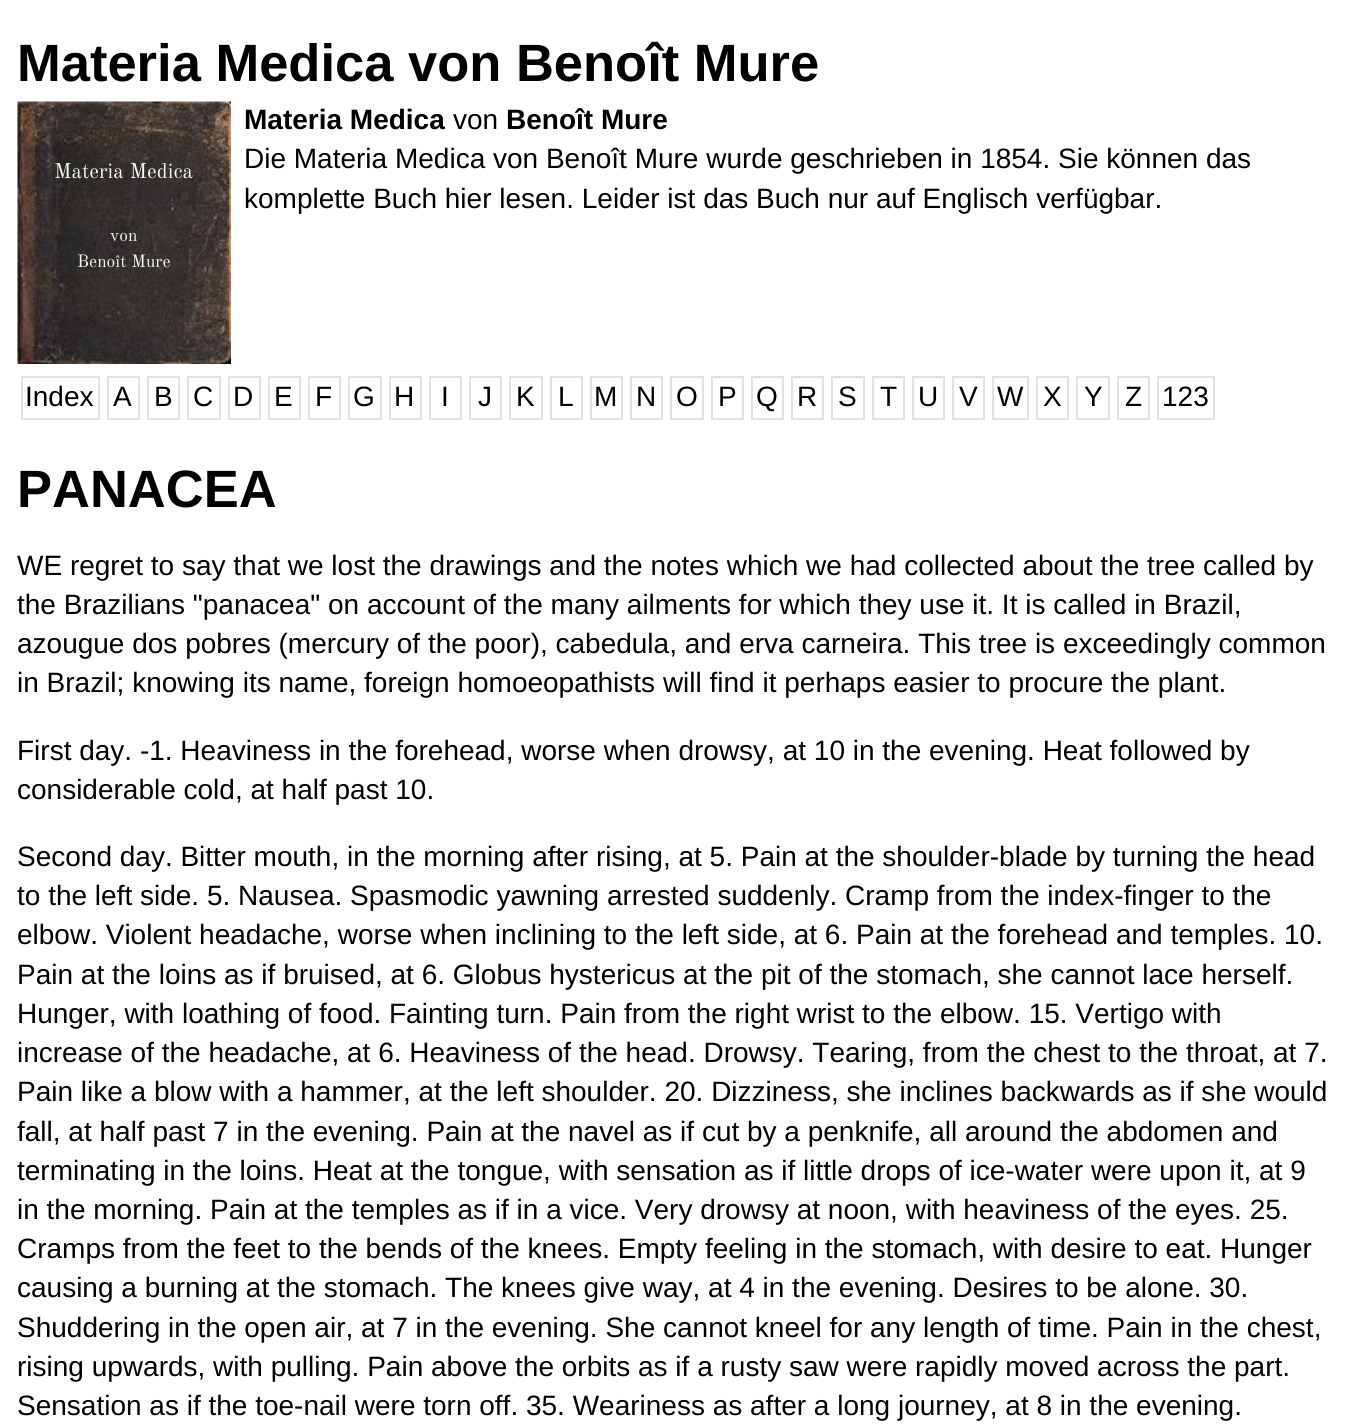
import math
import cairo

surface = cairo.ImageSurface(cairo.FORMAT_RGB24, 1345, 1424)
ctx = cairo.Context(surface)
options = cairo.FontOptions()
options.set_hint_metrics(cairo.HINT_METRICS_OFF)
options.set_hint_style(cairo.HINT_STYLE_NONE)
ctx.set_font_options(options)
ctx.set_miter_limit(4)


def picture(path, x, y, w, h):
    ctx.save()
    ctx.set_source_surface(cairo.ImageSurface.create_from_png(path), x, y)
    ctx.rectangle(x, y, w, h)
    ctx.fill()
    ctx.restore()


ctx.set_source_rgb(1, 1, 1)
ctx.paint()
ctx.select_font_face("Liberation Sans", cairo.FONT_SLANT_NORMAL, cairo.FONT_WEIGHT_BOLD)
ctx.set_font_size(52.5)
ctx.set_source_rgb(0, 0, 0)
ctx.move_to(17, 81)
ctx.show_text("Materia Medica von Benoît Mure")
picture("img1.png", 17, 101, 214, 263)
ctx.select_font_face("Old Standard TT")
ctx.set_font_size(21)
ctx.set_source_rgb(0.969, 0.976, 0.922)
ctx.move_to(54, 178)
ctx.show_text("Materia Medica")
ctx.set_font_size(17.5)
ctx.move_to(110, 241)
ctx.show_text("von")
ctx.move_to(77, 267)
ctx.show_text("Benoît Mure")
ctx.select_font_face("Liberation Sans", cairo.FONT_SLANT_NORMAL, cairo.FONT_WEIGHT_BOLD)
ctx.set_font_size(28)
ctx.set_source_rgb(0, 0, 0)
ctx.move_to(244, 129)
ctx.show_text("Materia Medica")
ctx.select_font_face("Liberation Sans")
ctx.move_to(453, 129)
ctx.show_text("von")
ctx.select_font_face("Liberation Sans", cairo.FONT_SLANT_NORMAL, cairo.FONT_WEIGHT_BOLD)
ctx.move_to(506, 129)
ctx.show_text("Benoît Mure")
ctx.select_font_face("Liberation Sans")
ctx.move_to(244, 168)
ctx.show_text("Die Materia Medica von Benoît Mure wurde geschrieben in 1854. Sie können das")
ctx.move_to(244, 208)
ctx.show_text("komplette Buch hier lesen. Leider ist das Buch nur auf Englisch verfügbar.")
ctx.rectangle(22, 377, 77, 42)
ctx.set_source_rgb(0.875, 0.886, 0.886)
ctx.stroke()
ctx.set_source_rgb(0, 0, 0)
ctx.move_to(25, 406)
ctx.show_text("Index")
ctx.rectangle(108, 377, 31, 42)
ctx.set_source_rgb(0.875, 0.886, 0.886)
ctx.stroke()
ctx.set_source_rgb(0, 0, 0)
ctx.move_to(113, 406)
ctx.show_text("A")
ctx.rectangle(148, 377, 31, 42)
ctx.set_source_rgb(0.875, 0.886, 0.886)
ctx.stroke()
ctx.set_source_rgb(0, 0, 0)
ctx.move_to(154, 406)
ctx.show_text("B")
ctx.rectangle(188, 377, 32, 42)
ctx.set_source_rgb(0.875, 0.886, 0.886)
ctx.stroke()
ctx.set_source_rgb(0, 0, 0)
ctx.move_to(193, 406)
ctx.show_text("C")
ctx.rectangle(229, 377, 31, 42)
ctx.set_source_rgb(0.875, 0.886, 0.886)
ctx.stroke()
ctx.set_source_rgb(0, 0, 0)
ctx.move_to(233, 406)
ctx.show_text("D")
ctx.rectangle(269, 377, 31, 42)
ctx.set_source_rgb(0.875, 0.886, 0.886)
ctx.stroke()
ctx.set_source_rgb(0, 0, 0)
ctx.move_to(274, 406)
ctx.show_text("E")
ctx.rectangle(309, 377, 31, 42)
ctx.set_source_rgb(0.875, 0.886, 0.886)
ctx.stroke()
ctx.set_source_rgb(0, 0, 0)
ctx.move_to(315, 406)
ctx.show_text("F")
ctx.rectangle(349, 377, 32, 42)
ctx.set_source_rgb(0.875, 0.886, 0.886)
ctx.stroke()
ctx.set_source_rgb(0, 0, 0)
ctx.move_to(353, 406)
ctx.show_text("G")
ctx.rectangle(390, 377, 31, 42)
ctx.set_source_rgb(0.875, 0.886, 0.886)
ctx.stroke()
ctx.set_source_rgb(0, 0, 0)
ctx.move_to(394, 406)
ctx.show_text("H")
ctx.rectangle(430, 377, 31, 42)
ctx.set_source_rgb(0.875, 0.886, 0.886)
ctx.stroke()
ctx.set_source_rgb(0, 0, 0)
ctx.move_to(441, 406)
ctx.show_text("I")
ctx.rectangle(470, 377, 31, 42)
ctx.set_source_rgb(0.875, 0.886, 0.886)
ctx.stroke()
ctx.set_source_rgb(0, 0, 0)
ctx.move_to(478, 406)
ctx.show_text("J")
ctx.rectangle(510, 377, 32, 42)
ctx.set_source_rgb(0.875, 0.886, 0.886)
ctx.stroke()
ctx.set_source_rgb(0, 0, 0)
ctx.move_to(516, 406)
ctx.show_text("K")
ctx.rectangle(551, 377, 31, 42)
ctx.set_source_rgb(0.875, 0.886, 0.886)
ctx.stroke()
ctx.set_source_rgb(0, 0, 0)
ctx.move_to(558, 406)
ctx.show_text("L")
ctx.rectangle(591, 377, 31, 42)
ctx.set_source_rgb(0.875, 0.886, 0.886)
ctx.stroke()
ctx.set_source_rgb(0, 0, 0)
ctx.move_to(594, 406)
ctx.show_text("M")
ctx.rectangle(631, 377, 31, 42)
ctx.set_source_rgb(0.875, 0.886, 0.886)
ctx.stroke()
ctx.set_source_rgb(0, 0, 0)
ctx.move_to(636, 406)
ctx.show_text("N")
ctx.rectangle(671, 377, 32, 42)
ctx.set_source_rgb(0.875, 0.886, 0.886)
ctx.stroke()
ctx.set_source_rgb(0, 0, 0)
ctx.move_to(676, 406)
ctx.show_text("O")
ctx.rectangle(712, 377, 31, 42)
ctx.set_source_rgb(0.875, 0.886, 0.886)
ctx.stroke()
ctx.set_source_rgb(0, 0, 0)
ctx.move_to(718, 406)
ctx.show_text("P")
ctx.rectangle(752, 377, 31, 42)
ctx.set_source_rgb(0.875, 0.886, 0.886)
ctx.stroke()
ctx.set_source_rgb(0, 0, 0)
ctx.move_to(756, 406)
ctx.show_text("Q")
ctx.rectangle(792, 377, 31, 42)
ctx.set_source_rgb(0.875, 0.886, 0.886)
ctx.stroke()
ctx.set_source_rgb(0, 0, 0)
ctx.move_to(797, 406)
ctx.show_text("R")
ctx.rectangle(832, 377, 32, 42)
ctx.set_source_rgb(0.875, 0.886, 0.886)
ctx.stroke()
ctx.set_source_rgb(0, 0, 0)
ctx.move_to(838, 406)
ctx.show_text("S")
ctx.rectangle(873, 377, 31, 42)
ctx.set_source_rgb(0.875, 0.886, 0.886)
ctx.stroke()
ctx.set_source_rgb(0, 0, 0)
ctx.move_to(880, 406)
ctx.show_text("T")
ctx.rectangle(913, 377, 31, 42)
ctx.set_source_rgb(0.875, 0.886, 0.886)
ctx.stroke()
ctx.set_source_rgb(0, 0, 0)
ctx.move_to(918, 406)
ctx.show_text("U")
ctx.rectangle(953, 377, 31, 42)
ctx.set_source_rgb(0.875, 0.886, 0.886)
ctx.stroke()
ctx.set_source_rgb(0, 0, 0)
ctx.move_to(959, 406)
ctx.show_text("V")
ctx.rectangle(993, 377, 35, 42)
ctx.set_source_rgb(0.875, 0.886, 0.886)
ctx.stroke()
ctx.set_source_rgb(0, 0, 0)
ctx.move_to(997, 406)
ctx.show_text("W")
ctx.rectangle(1037, 377, 31, 42)
ctx.set_source_rgb(0.875, 0.886, 0.886)
ctx.stroke()
ctx.set_source_rgb(0, 0, 0)
ctx.move_to(1043, 406)
ctx.show_text("X")
ctx.rectangle(1077, 377, 32, 42)
ctx.set_source_rgb(0.875, 0.886, 0.886)
ctx.stroke()
ctx.set_source_rgb(0, 0, 0)
ctx.move_to(1084, 406)
ctx.show_text("Y")
ctx.rectangle(1118, 377, 31, 42)
ctx.set_source_rgb(0.875, 0.886, 0.886)
ctx.stroke()
ctx.set_source_rgb(0, 0, 0)
ctx.move_to(1125, 406)
ctx.show_text("Z")
ctx.rectangle(1158, 377, 56, 42)
ctx.set_source_rgb(0.875, 0.886, 0.886)
ctx.stroke()
ctx.set_source_rgb(0, 0, 0)
ctx.move_to(1162, 406)
ctx.show_text("123")
ctx.select_font_face("Liberation Sans", cairo.FONT_SLANT_NORMAL, cairo.FONT_WEIGHT_BOLD)
ctx.set_font_size(52.5)
ctx.move_to(17, 507)
ctx.show_text("PANACEA")
ctx.select_font_face("Liberation Sans")
ctx.set_font_size(28)
ctx.move_to(17, 575)
ctx.show_text("WE regret to say that we lost the drawings and the notes which we had collected about the tree called by")
ctx.move_to(17, 614)
ctx.show_text("the Brazilians \"panacea\" on account of the many ailments for which they use it. It is called in Brazil,")
ctx.move_to(17, 653)
ctx.show_text("azougue dos pobres (mercury of the poor), cabedula, and erva carneira. This tree is exceedingly common")
ctx.move_to(17, 692)
ctx.show_text("in Brazil; knowing its name, foreign homoeopathists will find it perhaps easier to procure the plant.")
ctx.move_to(17, 760)
ctx.show_text("First day. -1. Heaviness in the forehead, worse when drowsy, at 10 in the evening. Heat followed by")
ctx.move_to(17, 799)
ctx.show_text("considerable cold, at half past 10.")
ctx.move_to(17, 866)
ctx.show_text("Second day. Bitter mouth, in the morning after rising, at 5. Pain at the shoulder-blade by turning the head")
ctx.move_to(17, 905)
ctx.show_text("to the left side. 5. Nausea. Spasmodic yawning arrested suddenly. Cramp from the index-finger to the")
ctx.move_to(17, 944)
ctx.show_text("elbow. Violent headache, worse when inclining to the left side, at 6. Pain at the forehead and temples. 10.")
ctx.move_to(17, 984)
ctx.show_text("Pain at the loins as if bruised, at 6. Globus hystericus at the pit of the stomach, she cannot lace herself.")
ctx.move_to(17, 1023)
ctx.show_text("Hunger, with loathing of food. Fainting turn. Pain from the right wrist to the elbow. 15. Vertigo with")
ctx.move_to(17, 1062)
ctx.show_text("increase of the headache, at 6. Heaviness of the head. Drowsy. Tearing, from the chest to the throat, at 7.")
ctx.move_to(17, 1101)
ctx.show_text("Pain like a blow with a hammer, at the left shoulder. 20. Dizziness, she inclines backwards as if she would")
ctx.move_to(17, 1141)
ctx.show_text("fall, at half past 7 in the evening. Pain at the navel as if cut by a penknife, all around the abdomen and")
ctx.move_to(17, 1180)
ctx.show_text("terminating in the loins. Heat at the tongue, with sensation as if little drops of ice-water were upon it, at 9")
ctx.move_to(17, 1219)
ctx.show_text("in the morning. Pain at the temples as if in a vice. Very drowsy at noon, with heaviness of the eyes. 25.")
ctx.move_to(17, 1258)
ctx.show_text("Cramps from the feet to the bends of the knees. Empty feeling in the stomach, with desire to eat. Hunger")
ctx.move_to(17, 1297)
ctx.show_text("causing a burning at the stomach. The knees give way, at 4 in the evening. Desires to be alone. 30.")
ctx.move_to(17, 1337)
ctx.show_text("Shuddering in the open air, at 7 in the evening. She cannot kneel for any length of time. Pain in the chest,")
ctx.move_to(17, 1376)
ctx.show_text("rising upwards, with pulling. Pain above the orbits as if a rusty saw were rapidly moved across the part.")
ctx.move_to(17, 1415)
ctx.show_text("Sensation as if the toe-nail were torn off. 35. Weariness as after a long journey, at 8 in the evening.")
surface.write_to_png("page.png")
